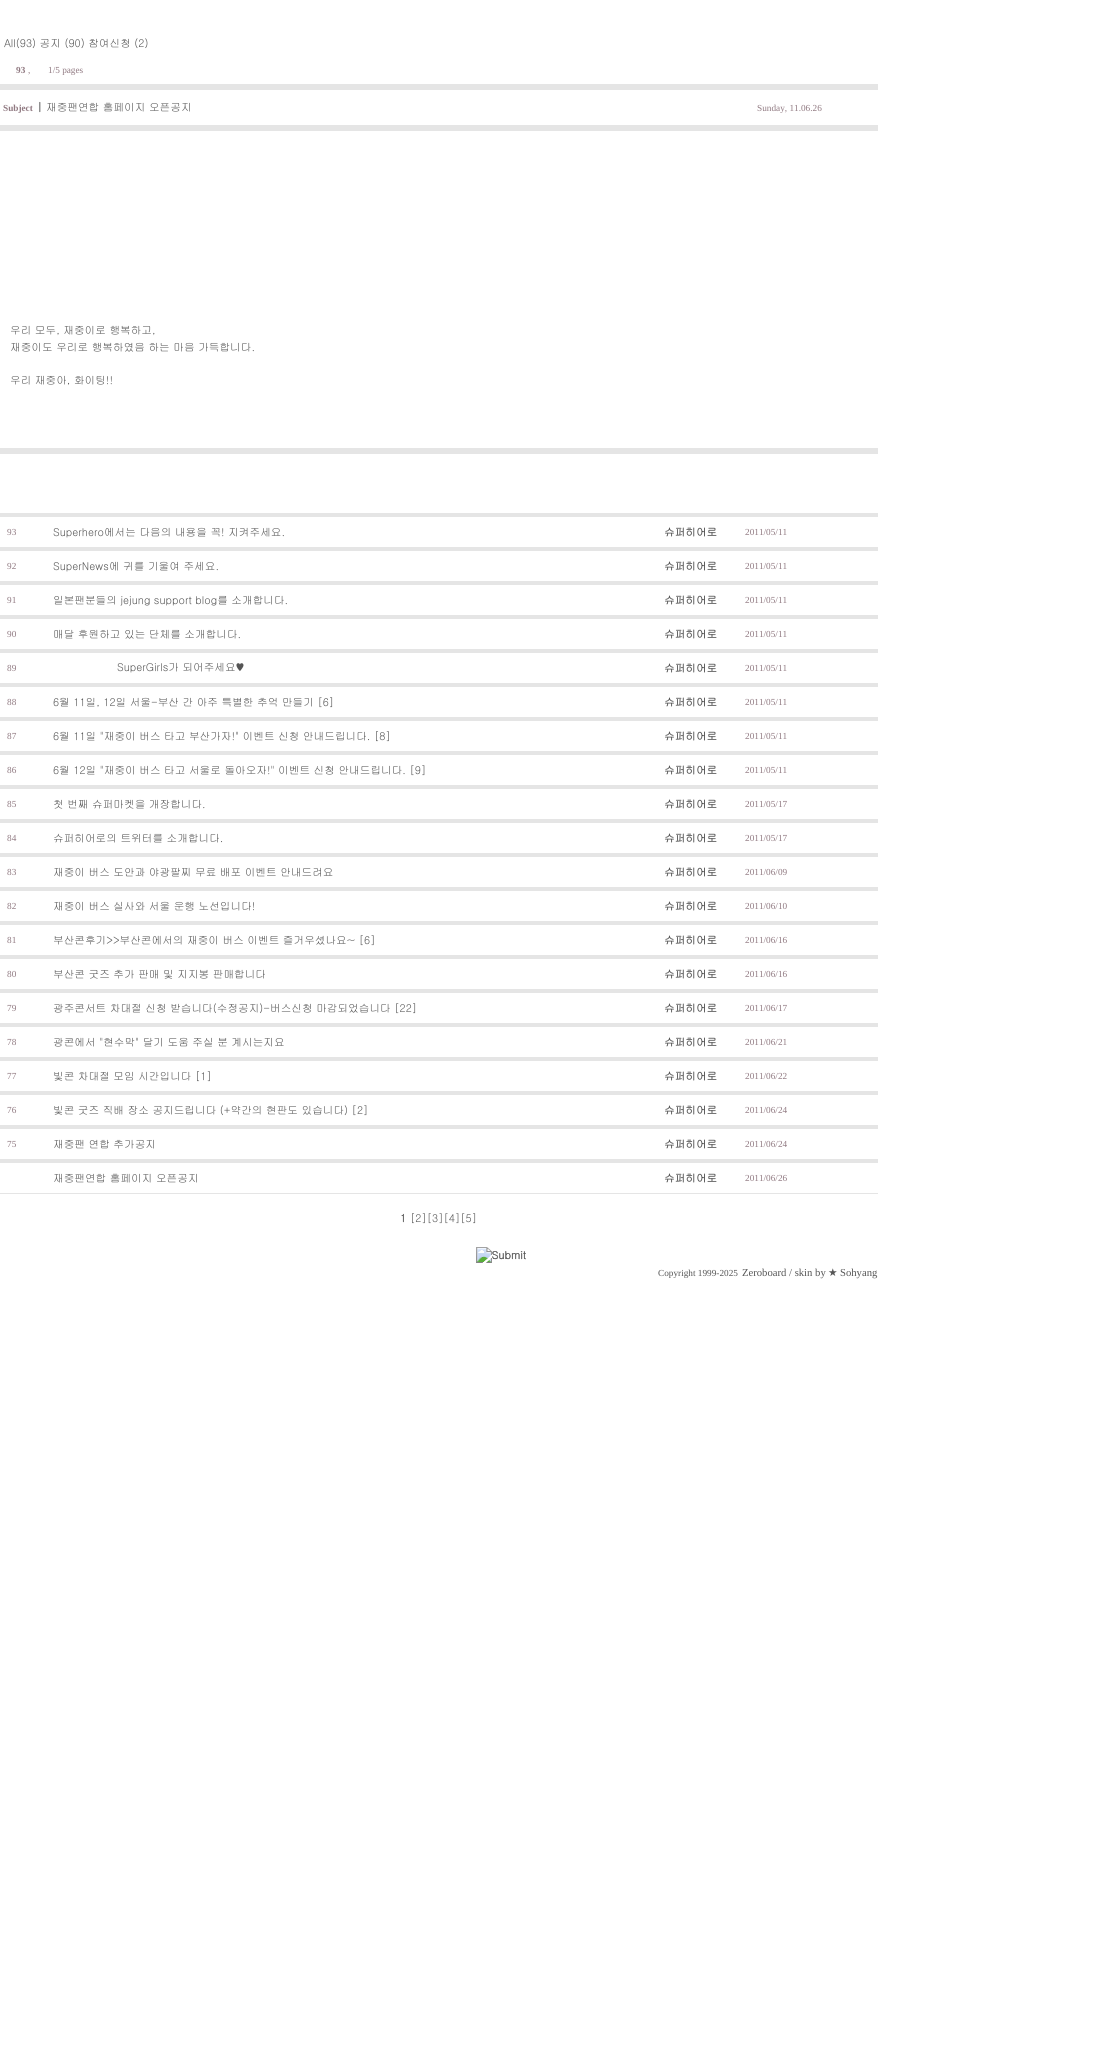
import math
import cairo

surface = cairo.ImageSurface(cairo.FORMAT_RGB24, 1097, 2067)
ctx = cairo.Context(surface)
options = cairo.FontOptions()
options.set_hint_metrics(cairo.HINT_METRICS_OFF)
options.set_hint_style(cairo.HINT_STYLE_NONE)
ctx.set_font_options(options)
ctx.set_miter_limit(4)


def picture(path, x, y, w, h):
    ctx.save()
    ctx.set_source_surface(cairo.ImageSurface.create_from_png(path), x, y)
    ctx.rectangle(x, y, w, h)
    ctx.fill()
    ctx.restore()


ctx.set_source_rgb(1, 1, 1)
ctx.paint()
ctx.select_font_face("Gulim")
ctx.set_font_size(10.65)
ctx.set_source_rgb(0.333, 0.333, 0.333)
ctx.move_to(4, 47)
ctx.show_text("All(93) 공지 (90) 참여신청 (2)")
ctx.select_font_face("Liberation Serif", cairo.FONT_SLANT_NORMAL, cairo.FONT_WEIGHT_BOLD)
ctx.set_font_size(9.25)
ctx.set_source_rgb(0.565, 0.475, 0.506)
ctx.move_to(16, 73)
ctx.show_text("93")
ctx.select_font_face("Liberation Serif")
ctx.move_to(28, 73)
ctx.show_text(",")
ctx.move_to(48, 73)
ctx.show_text("1/5 pages")
ctx.set_source_rgb(0.898, 0.898, 0.898)
ctx.rectangle(0, 84, 878, 6)
ctx.fill()
ctx.select_font_face("Liberation Serif", cairo.FONT_SLANT_NORMAL, cairo.FONT_WEIGHT_BOLD)
ctx.set_source_rgb(0.565, 0.475, 0.506)
ctx.move_to(3, 111)
ctx.show_text("Subject")
ctx.select_font_face("Gulim", cairo.FONT_SLANT_NORMAL, cairo.FONT_WEIGHT_BOLD)
ctx.set_font_size(10.65)
ctx.set_source_rgb(0.333, 0.333, 0.333)
ctx.move_to(37, 111)
ctx.show_text("|")
ctx.select_font_face("Gulim")
ctx.move_to(46, 111)
ctx.show_text("재중팬연합 홈페이지 오픈공지")
ctx.select_font_face("Liberation Serif")
ctx.set_font_size(9.25)
ctx.set_source_rgb(0.565, 0.475, 0.506)
ctx.move_to(757, 111)
ctx.show_text("Sunday, 11.06.26")
ctx.set_source_rgb(0.898, 0.898, 0.898)
ctx.rectangle(0, 125, 878, 6)
ctx.fill()
ctx.select_font_face("Gulim")
ctx.set_font_size(10.65)
ctx.set_source_rgb(0.333, 0.333, 0.333)
ctx.move_to(10, 334)
ctx.show_text("우리 모두, 재중이로 행복하고,")
ctx.move_to(10, 351)
ctx.show_text("재중이도 우리로 행복하였음 하는 마음 가득합니다.")
ctx.move_to(10, 384)
ctx.show_text("우리 재중아, 화이팅!!")
ctx.set_source_rgb(0.898, 0.898, 0.898)
ctx.rectangle(0, 448, 878, 6)
ctx.fill()
ctx.rectangle(0, 513, 878, 4)
ctx.fill()
ctx.select_font_face("Liberation Serif")
ctx.set_font_size(9.25)
ctx.set_source_rgb(0.565, 0.475, 0.506)
ctx.move_to(7, 535)
ctx.show_text("93")
ctx.select_font_face("Gulim")
ctx.set_font_size(10.65)
ctx.set_source_rgb(0.333, 0.333, 0.333)
ctx.move_to(53, 536)
ctx.show_text("Superhero에서는 다음의 내용을 꼭! 지켜주세요.")
ctx.select_font_face("Gulim", cairo.FONT_SLANT_NORMAL, cairo.FONT_WEIGHT_BOLD)
ctx.move_to(664, 536)
ctx.show_text("슈퍼히어로")
ctx.select_font_face("Liberation Serif")
ctx.set_font_size(9.25)
ctx.set_source_rgb(0.565, 0.475, 0.506)
ctx.move_to(745, 535)
ctx.show_text("2011/05/11")
ctx.set_source_rgb(0.898, 0.898, 0.898)
ctx.rectangle(0, 547, 878, 4)
ctx.fill()
ctx.set_source_rgb(0.565, 0.475, 0.506)
ctx.move_to(7, 569)
ctx.show_text("92")
ctx.select_font_face("Gulim")
ctx.set_font_size(10.65)
ctx.set_source_rgb(0.333, 0.333, 0.333)
ctx.move_to(53, 570)
ctx.show_text("SuperNews에 귀를 기울여 주세요.")
ctx.select_font_face("Gulim", cairo.FONT_SLANT_NORMAL, cairo.FONT_WEIGHT_BOLD)
ctx.move_to(664, 570)
ctx.show_text("슈퍼히어로")
ctx.select_font_face("Liberation Serif")
ctx.set_font_size(9.25)
ctx.set_source_rgb(0.565, 0.475, 0.506)
ctx.move_to(745, 569)
ctx.show_text("2011/05/11")
ctx.set_source_rgb(0.898, 0.898, 0.898)
ctx.rectangle(0, 581, 878, 4)
ctx.fill()
ctx.set_source_rgb(0.565, 0.475, 0.506)
ctx.move_to(7, 603)
ctx.show_text("91")
ctx.select_font_face("Gulim")
ctx.set_font_size(10.65)
ctx.set_source_rgb(0.333, 0.333, 0.333)
ctx.move_to(53, 604)
ctx.show_text("일본팬분들의 jejung support blog를 소개합니다.")
ctx.select_font_face("Gulim", cairo.FONT_SLANT_NORMAL, cairo.FONT_WEIGHT_BOLD)
ctx.move_to(664, 604)
ctx.show_text("슈퍼히어로")
ctx.select_font_face("Liberation Serif")
ctx.set_font_size(9.25)
ctx.set_source_rgb(0.565, 0.475, 0.506)
ctx.move_to(745, 603)
ctx.show_text("2011/05/11")
ctx.set_source_rgb(0.898, 0.898, 0.898)
ctx.rectangle(0, 615, 878, 4)
ctx.fill()
ctx.set_source_rgb(0.565, 0.475, 0.506)
ctx.move_to(7, 637)
ctx.show_text("90")
ctx.select_font_face("Gulim")
ctx.set_font_size(10.65)
ctx.set_source_rgb(0.333, 0.333, 0.333)
ctx.move_to(53, 638)
ctx.show_text("매달 후원하고 있는 단체를 소개합니다.")
ctx.select_font_face("Gulim", cairo.FONT_SLANT_NORMAL, cairo.FONT_WEIGHT_BOLD)
ctx.move_to(664, 638)
ctx.show_text("슈퍼히어로")
ctx.select_font_face("Liberation Serif")
ctx.set_font_size(9.25)
ctx.set_source_rgb(0.565, 0.475, 0.506)
ctx.move_to(745, 637)
ctx.show_text("2011/05/11")
ctx.set_source_rgb(0.898, 0.898, 0.898)
ctx.rectangle(0, 649, 878, 4)
ctx.fill()
ctx.set_source_rgb(0.565, 0.475, 0.506)
ctx.move_to(7, 671)
ctx.show_text("89")
ctx.select_font_face("Gulim")
ctx.set_font_size(10.65)
ctx.set_source_rgb(0.333, 0.333, 0.333)
ctx.move_to(117, 671)
ctx.show_text("SuperGirls가 되어주세요♥")
ctx.select_font_face("Gulim", cairo.FONT_SLANT_NORMAL, cairo.FONT_WEIGHT_BOLD)
ctx.move_to(664, 672)
ctx.show_text("슈퍼히어로")
ctx.select_font_face("Liberation Serif")
ctx.set_font_size(9.25)
ctx.set_source_rgb(0.565, 0.475, 0.506)
ctx.move_to(745, 671)
ctx.show_text("2011/05/11")
ctx.set_source_rgb(0.898, 0.898, 0.898)
ctx.rectangle(0, 683, 878, 4)
ctx.fill()
ctx.set_source_rgb(0.565, 0.475, 0.506)
ctx.move_to(7, 705)
ctx.show_text("88")
ctx.select_font_face("Gulim")
ctx.set_font_size(10.65)
ctx.set_source_rgb(0.333, 0.333, 0.333)
ctx.move_to(53, 706)
ctx.show_text("6월 11일, 12일 서울-부산 간 아주 특별한 추억 만들기 [6]")
ctx.select_font_face("Gulim", cairo.FONT_SLANT_NORMAL, cairo.FONT_WEIGHT_BOLD)
ctx.move_to(664, 706)
ctx.show_text("슈퍼히어로")
ctx.select_font_face("Liberation Serif")
ctx.set_font_size(9.25)
ctx.set_source_rgb(0.565, 0.475, 0.506)
ctx.move_to(745, 705)
ctx.show_text("2011/05/11")
ctx.set_source_rgb(0.898, 0.898, 0.898)
ctx.rectangle(0, 717, 878, 4)
ctx.fill()
ctx.set_source_rgb(0.565, 0.475, 0.506)
ctx.move_to(7, 739)
ctx.show_text("87")
ctx.select_font_face("Gulim")
ctx.set_font_size(10.65)
ctx.set_source_rgb(0.333, 0.333, 0.333)
ctx.move_to(53, 740)
ctx.show_text("6월 11일 \"재중이 버스 타고 부산가자!\" 이벤트 신청 안내드립니다. [8]")
ctx.select_font_face("Gulim", cairo.FONT_SLANT_NORMAL, cairo.FONT_WEIGHT_BOLD)
ctx.move_to(664, 740)
ctx.show_text("슈퍼히어로")
ctx.select_font_face("Liberation Serif")
ctx.set_font_size(9.25)
ctx.set_source_rgb(0.565, 0.475, 0.506)
ctx.move_to(745, 739)
ctx.show_text("2011/05/11")
ctx.set_source_rgb(0.898, 0.898, 0.898)
ctx.rectangle(0, 751, 878, 4)
ctx.fill()
ctx.set_source_rgb(0.565, 0.475, 0.506)
ctx.move_to(7, 773)
ctx.show_text("86")
ctx.select_font_face("Gulim")
ctx.set_font_size(10.65)
ctx.set_source_rgb(0.333, 0.333, 0.333)
ctx.move_to(53, 774)
ctx.show_text("6월 12일 \"재중이 버스 타고 서울로 돌아오자!\" 이벤트 신청 안내드립니다. [9]")
ctx.select_font_face("Gulim", cairo.FONT_SLANT_NORMAL, cairo.FONT_WEIGHT_BOLD)
ctx.move_to(664, 774)
ctx.show_text("슈퍼히어로")
ctx.select_font_face("Liberation Serif")
ctx.set_font_size(9.25)
ctx.set_source_rgb(0.565, 0.475, 0.506)
ctx.move_to(745, 773)
ctx.show_text("2011/05/11")
ctx.set_source_rgb(0.898, 0.898, 0.898)
ctx.rectangle(0, 785, 878, 4)
ctx.fill()
ctx.set_source_rgb(0.565, 0.475, 0.506)
ctx.move_to(7, 807)
ctx.show_text("85")
ctx.select_font_face("Gulim")
ctx.set_font_size(10.65)
ctx.set_source_rgb(0.333, 0.333, 0.333)
ctx.move_to(53, 808)
ctx.show_text("첫 번째 슈퍼마켓을 개장합니다.")
ctx.select_font_face("Gulim", cairo.FONT_SLANT_NORMAL, cairo.FONT_WEIGHT_BOLD)
ctx.move_to(664, 808)
ctx.show_text("슈퍼히어로")
ctx.select_font_face("Liberation Serif")
ctx.set_font_size(9.25)
ctx.set_source_rgb(0.565, 0.475, 0.506)
ctx.move_to(745, 807)
ctx.show_text("2011/05/17")
ctx.set_source_rgb(0.898, 0.898, 0.898)
ctx.rectangle(0, 819, 878, 4)
ctx.fill()
ctx.set_source_rgb(0.565, 0.475, 0.506)
ctx.move_to(7, 841)
ctx.show_text("84")
ctx.select_font_face("Gulim")
ctx.set_font_size(10.65)
ctx.set_source_rgb(0.333, 0.333, 0.333)
ctx.move_to(53, 842)
ctx.show_text("슈퍼히어로의 트위터를 소개합니다.")
ctx.select_font_face("Gulim", cairo.FONT_SLANT_NORMAL, cairo.FONT_WEIGHT_BOLD)
ctx.move_to(664, 842)
ctx.show_text("슈퍼히어로")
ctx.select_font_face("Liberation Serif")
ctx.set_font_size(9.25)
ctx.set_source_rgb(0.565, 0.475, 0.506)
ctx.move_to(745, 841)
ctx.show_text("2011/05/17")
ctx.set_source_rgb(0.898, 0.898, 0.898)
ctx.rectangle(0, 853, 878, 4)
ctx.fill()
ctx.set_source_rgb(0.565, 0.475, 0.506)
ctx.move_to(7, 875)
ctx.show_text("83")
ctx.select_font_face("Gulim")
ctx.set_font_size(10.65)
ctx.set_source_rgb(0.333, 0.333, 0.333)
ctx.move_to(53, 876)
ctx.show_text("재중이 버스 도안과 야광팔찌 무료 배포 이벤트 안내드려요")
ctx.select_font_face("Gulim", cairo.FONT_SLANT_NORMAL, cairo.FONT_WEIGHT_BOLD)
ctx.move_to(664, 876)
ctx.show_text("슈퍼히어로")
ctx.select_font_face("Liberation Serif")
ctx.set_font_size(9.25)
ctx.set_source_rgb(0.565, 0.475, 0.506)
ctx.move_to(745, 875)
ctx.show_text("2011/06/09")
ctx.set_source_rgb(0.898, 0.898, 0.898)
ctx.rectangle(0, 887, 878, 4)
ctx.fill()
ctx.set_source_rgb(0.565, 0.475, 0.506)
ctx.move_to(7, 909)
ctx.show_text("82")
ctx.select_font_face("Gulim")
ctx.set_font_size(10.65)
ctx.set_source_rgb(0.333, 0.333, 0.333)
ctx.move_to(53, 910)
ctx.show_text("재중이 버스 실사와 서울 운행 노선입니다!")
ctx.select_font_face("Gulim", cairo.FONT_SLANT_NORMAL, cairo.FONT_WEIGHT_BOLD)
ctx.move_to(664, 910)
ctx.show_text("슈퍼히어로")
ctx.select_font_face("Liberation Serif")
ctx.set_font_size(9.25)
ctx.set_source_rgb(0.565, 0.475, 0.506)
ctx.move_to(745, 909)
ctx.show_text("2011/06/10")
ctx.set_source_rgb(0.898, 0.898, 0.898)
ctx.rectangle(0, 921, 878, 4)
ctx.fill()
ctx.set_source_rgb(0.565, 0.475, 0.506)
ctx.move_to(7, 943)
ctx.show_text("81")
ctx.select_font_face("Gulim")
ctx.set_font_size(10.65)
ctx.set_source_rgb(0.333, 0.333, 0.333)
ctx.move_to(53, 944)
ctx.show_text("부산콘후기>>부산콘에서의 재중이 버스 이벤트 즐거우셨나요~ [6]")
ctx.select_font_face("Gulim", cairo.FONT_SLANT_NORMAL, cairo.FONT_WEIGHT_BOLD)
ctx.move_to(664, 944)
ctx.show_text("슈퍼히어로")
ctx.select_font_face("Liberation Serif")
ctx.set_font_size(9.25)
ctx.set_source_rgb(0.565, 0.475, 0.506)
ctx.move_to(745, 943)
ctx.show_text("2011/06/16")
ctx.set_source_rgb(0.898, 0.898, 0.898)
ctx.rectangle(0, 955, 878, 4)
ctx.fill()
ctx.set_source_rgb(0.565, 0.475, 0.506)
ctx.move_to(7, 977)
ctx.show_text("80")
ctx.select_font_face("Gulim")
ctx.set_font_size(10.65)
ctx.set_source_rgb(0.333, 0.333, 0.333)
ctx.move_to(53, 978)
ctx.show_text("부산콘 굿즈 추가 판매 및 지지봉 판매합니다")
ctx.select_font_face("Gulim", cairo.FONT_SLANT_NORMAL, cairo.FONT_WEIGHT_BOLD)
ctx.move_to(664, 978)
ctx.show_text("슈퍼히어로")
ctx.select_font_face("Liberation Serif")
ctx.set_font_size(9.25)
ctx.set_source_rgb(0.565, 0.475, 0.506)
ctx.move_to(745, 977)
ctx.show_text("2011/06/16")
ctx.set_source_rgb(0.898, 0.898, 0.898)
ctx.rectangle(0, 989, 878, 4)
ctx.fill()
ctx.set_source_rgb(0.565, 0.475, 0.506)
ctx.move_to(7, 1011)
ctx.show_text("79")
ctx.select_font_face("Gulim")
ctx.set_font_size(10.65)
ctx.set_source_rgb(0.333, 0.333, 0.333)
ctx.move_to(53, 1012)
ctx.show_text("광주콘서트 차대절 신청 받습니다(수정공지)-버스신청 마감되었습니다 [22]")
ctx.select_font_face("Gulim", cairo.FONT_SLANT_NORMAL, cairo.FONT_WEIGHT_BOLD)
ctx.move_to(664, 1012)
ctx.show_text("슈퍼히어로")
ctx.select_font_face("Liberation Serif")
ctx.set_font_size(9.25)
ctx.set_source_rgb(0.565, 0.475, 0.506)
ctx.move_to(745, 1011)
ctx.show_text("2011/06/17")
ctx.set_source_rgb(0.898, 0.898, 0.898)
ctx.rectangle(0, 1023, 878, 4)
ctx.fill()
ctx.set_source_rgb(0.565, 0.475, 0.506)
ctx.move_to(7, 1045)
ctx.show_text("78")
ctx.select_font_face("Gulim")
ctx.set_font_size(10.65)
ctx.set_source_rgb(0.333, 0.333, 0.333)
ctx.move_to(53, 1046)
ctx.show_text("광콘에서 \"현수막\" 달기 도움 주실 분 계시는지요")
ctx.select_font_face("Gulim", cairo.FONT_SLANT_NORMAL, cairo.FONT_WEIGHT_BOLD)
ctx.move_to(664, 1046)
ctx.show_text("슈퍼히어로")
ctx.select_font_face("Liberation Serif")
ctx.set_font_size(9.25)
ctx.set_source_rgb(0.565, 0.475, 0.506)
ctx.move_to(745, 1045)
ctx.show_text("2011/06/21")
ctx.set_source_rgb(0.898, 0.898, 0.898)
ctx.rectangle(0, 1057, 878, 4)
ctx.fill()
ctx.set_source_rgb(0.565, 0.475, 0.506)
ctx.move_to(7, 1079)
ctx.show_text("77")
ctx.select_font_face("Gulim")
ctx.set_font_size(10.65)
ctx.set_source_rgb(0.333, 0.333, 0.333)
ctx.move_to(53, 1080)
ctx.show_text("빛콘 차대절 모임 시간입니다 [1]")
ctx.select_font_face("Gulim", cairo.FONT_SLANT_NORMAL, cairo.FONT_WEIGHT_BOLD)
ctx.move_to(664, 1080)
ctx.show_text("슈퍼히어로")
ctx.select_font_face("Liberation Serif")
ctx.set_font_size(9.25)
ctx.set_source_rgb(0.565, 0.475, 0.506)
ctx.move_to(745, 1079)
ctx.show_text("2011/06/22")
ctx.set_source_rgb(0.898, 0.898, 0.898)
ctx.rectangle(0, 1091, 878, 4)
ctx.fill()
ctx.set_source_rgb(0.565, 0.475, 0.506)
ctx.move_to(7, 1113)
ctx.show_text("76")
ctx.select_font_face("Gulim")
ctx.set_font_size(10.65)
ctx.set_source_rgb(0.333, 0.333, 0.333)
ctx.move_to(53, 1114)
ctx.show_text("빛콘 굿즈 직배 장소 공지드립니다 (+약간의 현판도 있습니다) [2]")
ctx.select_font_face("Gulim", cairo.FONT_SLANT_NORMAL, cairo.FONT_WEIGHT_BOLD)
ctx.move_to(664, 1114)
ctx.show_text("슈퍼히어로")
ctx.select_font_face("Liberation Serif")
ctx.set_font_size(9.25)
ctx.set_source_rgb(0.565, 0.475, 0.506)
ctx.move_to(745, 1113)
ctx.show_text("2011/06/24")
ctx.set_source_rgb(0.898, 0.898, 0.898)
ctx.rectangle(0, 1125, 878, 4)
ctx.fill()
ctx.set_source_rgb(0.565, 0.475, 0.506)
ctx.move_to(7, 1147)
ctx.show_text("75")
ctx.select_font_face("Gulim")
ctx.set_font_size(10.65)
ctx.set_source_rgb(0.333, 0.333, 0.333)
ctx.move_to(53, 1148)
ctx.show_text("재중팬 연합 추가공지")
ctx.select_font_face("Gulim", cairo.FONT_SLANT_NORMAL, cairo.FONT_WEIGHT_BOLD)
ctx.move_to(664, 1148)
ctx.show_text("슈퍼히어로")
ctx.select_font_face("Liberation Serif")
ctx.set_font_size(9.25)
ctx.set_source_rgb(0.565, 0.475, 0.506)
ctx.move_to(745, 1147)
ctx.show_text("2011/06/24")
ctx.set_source_rgb(0.898, 0.898, 0.898)
ctx.rectangle(0, 1159, 878, 4)
ctx.fill()
ctx.select_font_face("Gulim")
ctx.set_font_size(10.65)
ctx.set_source_rgb(0.333, 0.333, 0.333)
ctx.move_to(53, 1182)
ctx.show_text("재중팬연합 홈페이지 오픈공지")
ctx.select_font_face("Gulim", cairo.FONT_SLANT_NORMAL, cairo.FONT_WEIGHT_BOLD)
ctx.move_to(664, 1182)
ctx.show_text("슈퍼히어로")
ctx.select_font_face("Liberation Serif")
ctx.set_font_size(9.25)
ctx.set_source_rgb(0.565, 0.475, 0.506)
ctx.move_to(745, 1181)
ctx.show_text("2011/06/26")
ctx.set_source_rgb(0.898, 0.898, 0.898)
ctx.rectangle(0, 1193, 878, 1)
ctx.fill()
ctx.select_font_face("Gulim", cairo.FONT_SLANT_NORMAL, cairo.FONT_WEIGHT_BOLD)
ctx.set_font_size(10.65)
ctx.set_source_rgb(0.333, 0.333, 0.333)
ctx.move_to(400, 1222)
ctx.show_text("1")
ctx.select_font_face("Gulim")
ctx.move_to(410, 1222)
ctx.show_text("[2][3][4][5]")
picture("img1.png", 476, 1247, 50, 16)
ctx.move_to(492, 1259)
ctx.show_text("Submit")
ctx.select_font_face("Liberation Serif")
ctx.set_font_size(9.25)
ctx.move_to(658, 1276)
ctx.show_text("Copyright 1999-2025")
ctx.set_font_size(10.65)
ctx.move_to(742, 1276)
ctx.show_text("Zeroboard / skin by")
ctx.select_font_face("DejaVu Sans")
ctx.move_to(828, 1276)
ctx.show_text("★")
ctx.select_font_face("Liberation Serif")
ctx.move_to(840, 1276)
ctx.show_text("Sohyang")
surface.write_to_png("page.png")
